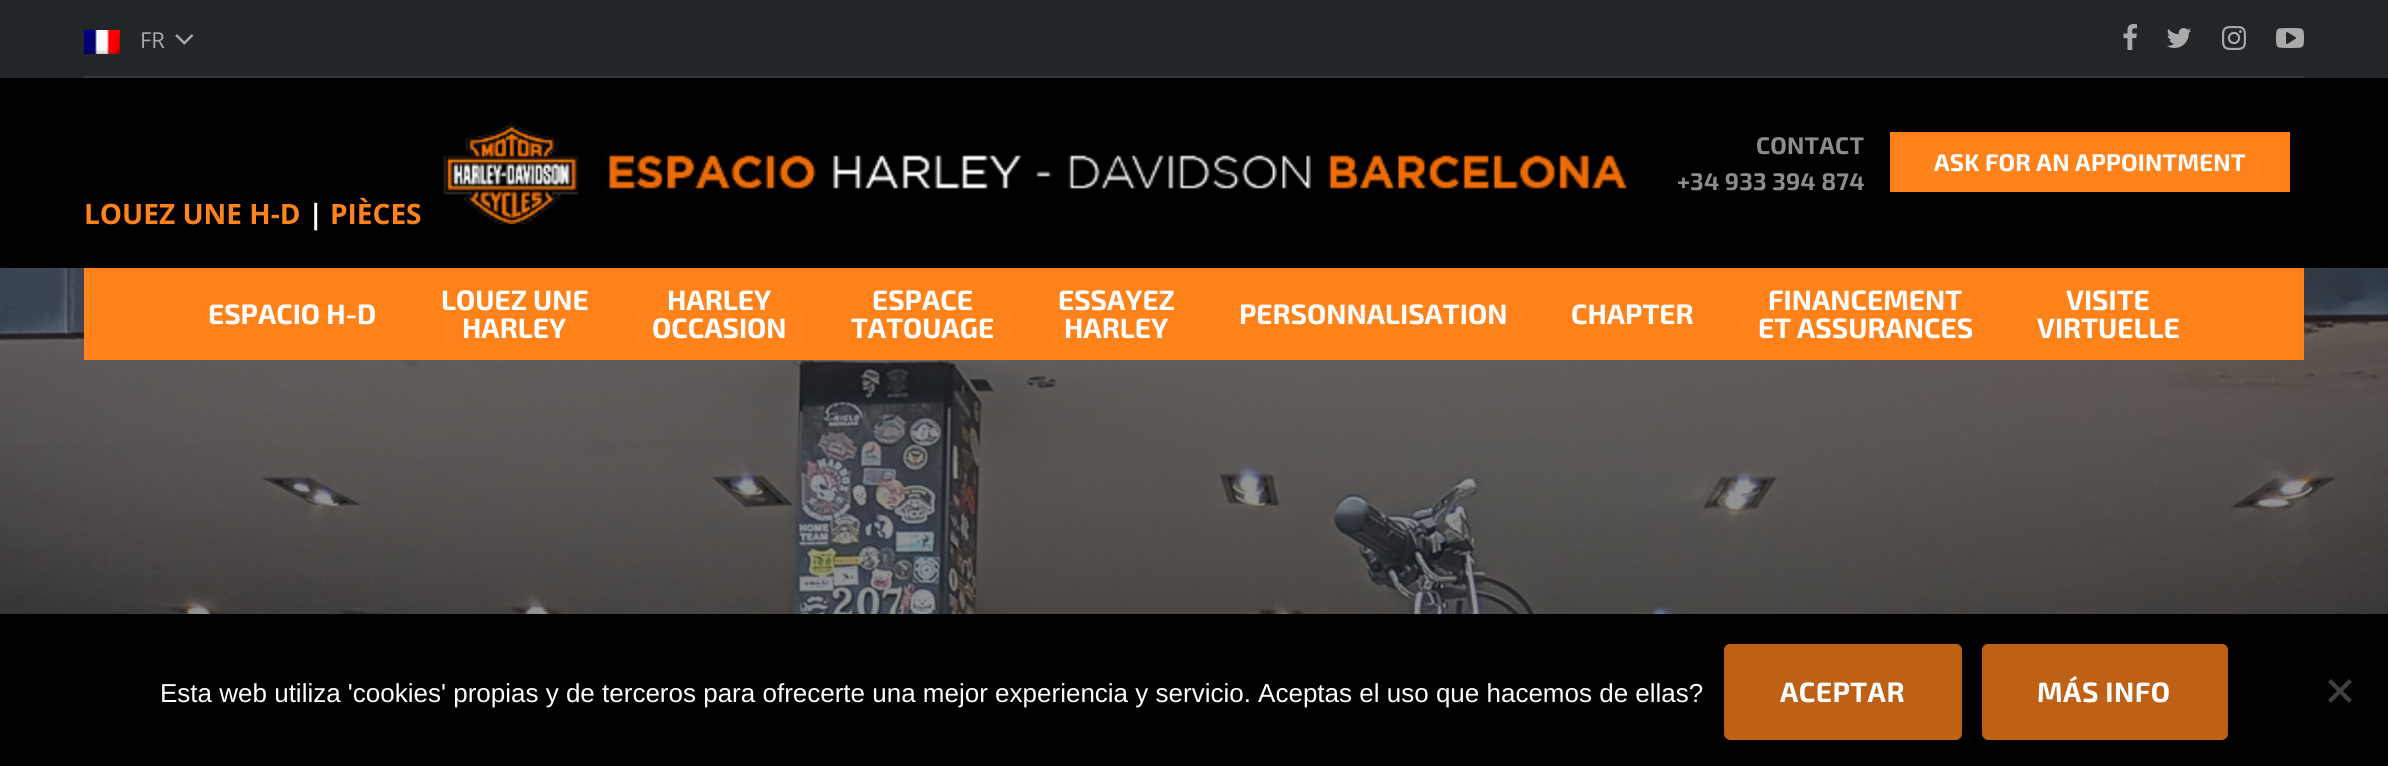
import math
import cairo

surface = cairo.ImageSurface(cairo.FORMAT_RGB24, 2388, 766)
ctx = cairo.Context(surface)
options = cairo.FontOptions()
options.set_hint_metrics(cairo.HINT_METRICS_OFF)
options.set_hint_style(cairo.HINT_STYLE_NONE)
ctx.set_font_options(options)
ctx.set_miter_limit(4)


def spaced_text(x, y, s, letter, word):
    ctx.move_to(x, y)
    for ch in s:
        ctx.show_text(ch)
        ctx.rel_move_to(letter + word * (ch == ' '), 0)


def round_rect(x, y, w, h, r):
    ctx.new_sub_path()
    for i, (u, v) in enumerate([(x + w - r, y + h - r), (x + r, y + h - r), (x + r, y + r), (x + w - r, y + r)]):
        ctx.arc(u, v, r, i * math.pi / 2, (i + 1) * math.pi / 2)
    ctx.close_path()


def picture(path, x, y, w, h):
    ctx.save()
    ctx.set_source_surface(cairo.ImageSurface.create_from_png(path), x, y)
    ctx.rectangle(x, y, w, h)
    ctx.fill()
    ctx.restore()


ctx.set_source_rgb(0.133, 0.149, 0.161)
ctx.paint()
ctx.set_source_rgb(0.216, 0.231, 0.243)
ctx.rectangle(84, 76, 2220, 2)
ctx.fill()
picture("img1.png", 84, 30, 36, 24)
ctx.select_font_face("Open Sans")
ctx.set_font_size(22)
ctx.set_source_rgb(0.667, 0.667, 0.667)
ctx.move_to(140, 48)
ctx.show_text("FR")
picture("img2.png", 175, 34, 19, 11)
picture("img3.png", 2123, 24, 14, 26)
picture("img4.png", 2167, 28, 25, 20)
picture("img5.png", 2222, 26, 24, 24)
picture("img6.png", 2276, 28, 28, 20)
ctx.set_source_rgb(0, 0, 0)
ctx.rectangle(0, 78, 2388, 190)
ctx.fill()
picture("img7.png", 443, 122, 1185, 102)
ctx.select_font_face("Exo 2", cairo.FONT_SLANT_NORMAL, cairo.FONT_WEIGHT_BOLD)
ctx.set_font_size(24)
ctx.set_source_rgb(0.549, 0.549, 0.549)
spaced_text(1756, 154, "CONTACT", 0.2, 0)
spaced_text(1677, 190, "+34 933 394 874", 0.2, 0)
ctx.set_source_rgb(1, 0.51, 0.106)
ctx.rectangle(1890, 132, 400, 60)
ctx.fill()
ctx.set_source_rgb(1, 1, 1)
spaced_text(1934, 171, "ASK FOR AN APPOINTMENT", 0.2, 0)
ctx.select_font_face("Open Sans", cairo.FONT_SLANT_NORMAL, cairo.FONT_WEIGHT_BOLD)
ctx.set_font_size(28)
ctx.set_source_rgb(1, 0.51, 0.106)
ctx.move_to(84, 224)
ctx.show_text("LOUEZ UNE H-D")
ctx.set_source_rgb(1, 1, 1)
ctx.move_to(308, 224)
ctx.show_text("|")
ctx.set_source_rgb(1, 0.51, 0.106)
ctx.move_to(330, 224)
ctx.show_text("PIÈCES")
picture("img8.png", 0, 268, 2388, 346)
ctx.rectangle(84, 268, 2220, 92)
ctx.fill()
ctx.select_font_face("Exo 2", cairo.FONT_SLANT_NORMAL, cairo.FONT_WEIGHT_BOLD)
ctx.set_source_rgb(1, 1, 1)
ctx.move_to(208, 324)
ctx.show_text("ESPACIO H-D")
ctx.move_to(441, 310)
ctx.show_text("LOUEZ UNE")
ctx.move_to(462, 338)
ctx.show_text("HARLEY")
ctx.move_to(667, 310)
ctx.show_text("HARLEY")
ctx.move_to(652, 338)
ctx.show_text("OCCASION")
ctx.move_to(872, 310)
ctx.show_text("ESPACE")
ctx.move_to(851, 338)
ctx.show_text("TATOUAGE")
ctx.move_to(1058, 310)
ctx.show_text("ESSAYEZ")
ctx.move_to(1064, 338)
ctx.show_text("HARLEY")
ctx.move_to(1239, 324)
ctx.show_text("PERSONNALISATION")
ctx.move_to(1571, 324)
ctx.show_text("CHAPTER")
ctx.move_to(1768, 310)
ctx.show_text("FINANCEMENT")
ctx.move_to(1758, 338)
ctx.show_text("ET ASSURANCES")
ctx.move_to(2066, 310)
ctx.show_text("VISITE")
ctx.move_to(2037, 338)
ctx.show_text("VIRTUELLE")
ctx.set_source_rgb(0, 0, 0)
ctx.rectangle(0, 614, 2388, 152)
ctx.fill()
ctx.select_font_face("Liberation Sans")
ctx.set_font_size(26)
ctx.set_source_rgb(1, 1, 1)
ctx.move_to(160, 702)
ctx.show_text("Esta web utiliza 'cookies' propias y de terceros para ofrecerte una mejor experiencia y servicio. Aceptas el uso que hacemos de ellas?")
ctx.set_source_rgb(0.749, 0.384, 0.078)
ctx.new_path()
ctx.move_to(1724, 730)
ctx.line_to(1724, 734)
ctx.curve_to(1724, 737, 1727, 740, 1730, 740)
ctx.line_to(1956, 740)
ctx.curve_to(1959, 740, 1962, 737, 1962, 734)
ctx.line_to(1962, 730)
ctx.curve_to(1962, 733, 1959, 736, 1956, 736)
ctx.line_to(1730, 736)
ctx.curve_to(1727, 736, 1724, 733, 1724, 730)
ctx.close_path()
ctx.fill()
ctx.set_source_rgba(1, 0.51, 0.106, 0.75)
round_rect(1724, 644, 238, 92, 6)
ctx.fill()
ctx.select_font_face("Exo 2", cairo.FONT_SLANT_NORMAL, cairo.FONT_WEIGHT_BOLD)
ctx.set_font_size(28)
ctx.set_source_rgb(1, 1, 1)
spaced_text(1780, 702, "ACEPTAR", 0.5, 0)
ctx.set_source_rgb(0.749, 0.384, 0.078)
ctx.new_path()
ctx.move_to(1982, 730)
ctx.line_to(1982, 734)
ctx.curve_to(1982, 737, 1985, 740, 1988, 740)
ctx.line_to(2222, 740)
ctx.curve_to(2225, 740, 2228, 737, 2228, 734)
ctx.line_to(2228, 730)
ctx.curve_to(2228, 733, 2225, 736, 2222, 736)
ctx.line_to(1988, 736)
ctx.curve_to(1985, 736, 1982, 733, 1982, 730)
ctx.close_path()
ctx.fill()
ctx.set_source_rgba(1, 0.51, 0.106, 0.75)
round_rect(1982, 644, 246, 92, 6)
ctx.fill()
ctx.set_source_rgb(1, 1, 1)
spaced_text(2037, 702, "MÁS INFO", 0.5, 0)
ctx.set_source_rgb(0.251, 0.251, 0.251)
ctx.new_path()
ctx.move_to(2349, 679)
ctx.line_to(2352, 682)
ctx.line_to(2331, 703)
ctx.line_to(2328, 700)
ctx.close_path()
ctx.fill()
ctx.new_path()
ctx.move_to(2328, 682)
ctx.line_to(2331, 679)
ctx.line_to(2352, 700)
ctx.line_to(2349, 703)
ctx.close_path()
ctx.fill()
surface.write_to_png("page.png")
